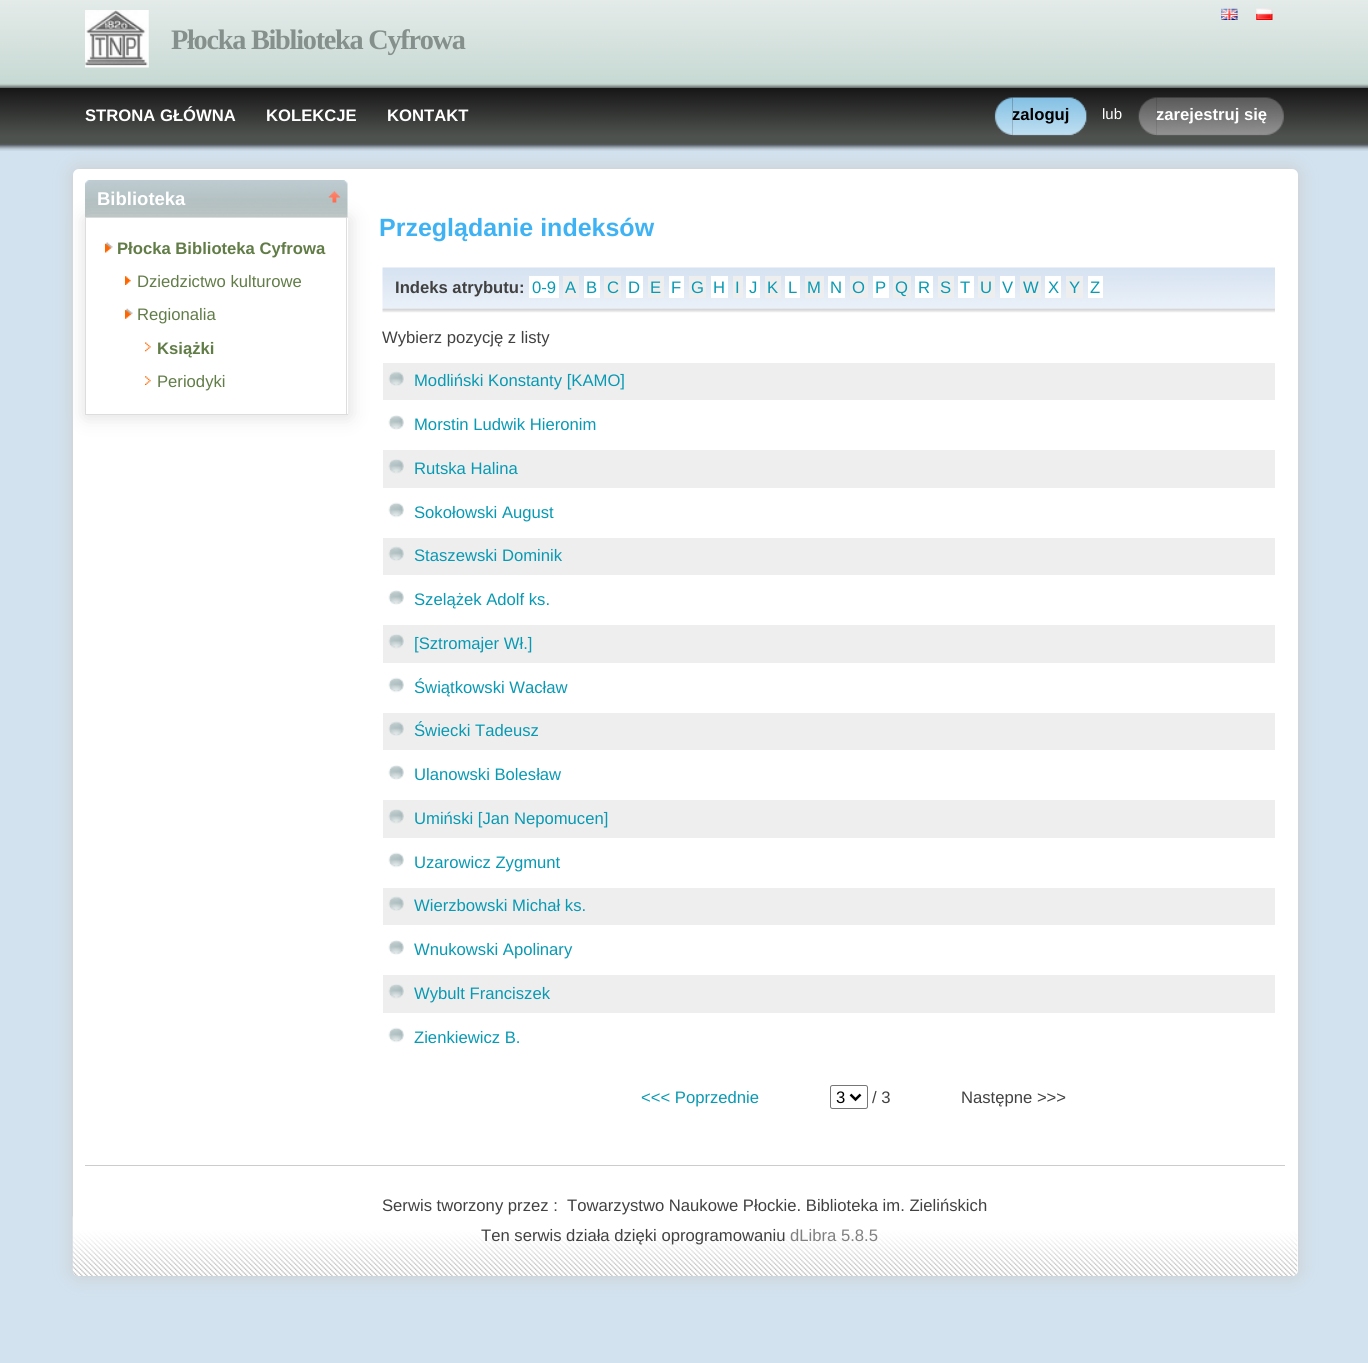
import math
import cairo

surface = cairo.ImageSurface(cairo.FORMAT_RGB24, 1368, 1363)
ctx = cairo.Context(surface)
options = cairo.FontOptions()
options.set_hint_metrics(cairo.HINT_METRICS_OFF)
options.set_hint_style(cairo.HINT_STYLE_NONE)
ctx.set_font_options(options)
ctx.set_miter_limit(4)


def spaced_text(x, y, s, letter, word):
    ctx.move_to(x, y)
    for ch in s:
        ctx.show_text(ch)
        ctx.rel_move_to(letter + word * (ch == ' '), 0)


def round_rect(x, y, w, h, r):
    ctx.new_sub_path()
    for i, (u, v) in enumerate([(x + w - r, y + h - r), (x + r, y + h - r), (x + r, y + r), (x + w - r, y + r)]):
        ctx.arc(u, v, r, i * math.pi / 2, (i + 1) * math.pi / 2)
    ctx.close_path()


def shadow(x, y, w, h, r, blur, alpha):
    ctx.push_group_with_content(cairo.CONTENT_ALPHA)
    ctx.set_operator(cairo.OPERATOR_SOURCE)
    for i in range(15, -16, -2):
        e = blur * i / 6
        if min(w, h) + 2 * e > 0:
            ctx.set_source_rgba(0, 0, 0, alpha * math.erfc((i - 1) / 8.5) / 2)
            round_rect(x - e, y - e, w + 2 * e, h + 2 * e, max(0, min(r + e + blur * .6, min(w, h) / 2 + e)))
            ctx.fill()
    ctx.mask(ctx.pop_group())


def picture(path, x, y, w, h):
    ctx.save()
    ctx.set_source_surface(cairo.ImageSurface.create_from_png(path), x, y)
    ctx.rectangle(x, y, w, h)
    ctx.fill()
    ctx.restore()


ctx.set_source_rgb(0.824, 0.886, 0.937)
ctx.paint()
picture("img1.png", 0, 0, 1368, 88)
picture("img2.png", 85, 10, 64, 58)
ctx.select_font_face("Liberation Serif", cairo.FONT_SLANT_NORMAL, cairo.FONT_WEIGHT_BOLD)
ctx.set_font_size(28.25)
ctx.set_source_rgb(0.522, 0.561, 0.549)
spaced_text(171, 49, "Płocka Biblioteka Cyfrowa", -1.25, 0)
picture("img3.png", 1221, 8, 17, 12)
picture("img4.png", 1256, 8, 17, 12)
ctx.set_source_rgb(0.8, 0.8, 0.8)
shadow(73, 169, 1225, 1107, 6, 9.5, 1)
picture("img5.png", 0, 87, 1368, 64)
ctx.select_font_face("Liberation Sans", cairo.FONT_SLANT_NORMAL, cairo.FONT_WEIGHT_BOLD)
ctx.set_font_size(16.65)
ctx.set_source_rgb(1, 1, 1)
ctx.move_to(85, 121)
ctx.show_text("STRONA GŁÓWNA")
ctx.move_to(266, 121)
ctx.show_text("KOLEKCJE")
ctx.move_to(387, 121)
ctx.show_text("KONTAKT")
picture("img6.png", 1012, 97, 75, 39)
picture("img7.png", 994, 97, 19, 38)
ctx.set_source_rgb(0, 0, 0)
ctx.move_to(1012, 120)
ctx.show_text("zaloguj")
ctx.select_font_face("Liberation Sans")
ctx.set_font_size(15)
ctx.set_source_rgb(1, 1, 1)
ctx.move_to(1102, 119)
ctx.show_text("lub")
picture("img8.png", 1156, 97, 128, 39)
picture("img9.png", 1138, 97, 19, 38)
ctx.select_font_face("Liberation Sans", cairo.FONT_SLANT_NORMAL, cairo.FONT_WEIGHT_BOLD)
ctx.set_font_size(16.65)
ctx.move_to(1156, 120)
ctx.show_text("zarejestruj się")
round_rect(73, 169, 1225, 1107, 6)
ctx.fill()
picture("img10.png", 72, 1216, 1226, 60)
picture("img11.png", 85, 180, 263, 38)
ctx.save()
ctx.set_fill_rule(cairo.FILL_RULE_EVEN_ODD)
ctx.new_path()
ctx.move_to(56, 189)
ctx.line_to(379, 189)
ctx.line_to(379, 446)
ctx.line_to(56, 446)
ctx.close_path()
ctx.move_to(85, 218)
ctx.line_to(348, 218)
ctx.line_to(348, 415)
ctx.line_to(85, 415)
ctx.close_path()
ctx.clip()
ctx.set_source_rgb(0.867, 0.867, 0.867)
shadow(86, 219, 263, 197, 0, 9.5, 1)
ctx.restore()
ctx.set_font_size(18.5)
ctx.move_to(97, 205)
ctx.show_text("Biblioteka")
picture("img12.png", 328, 191, 13, 12)
ctx.set_source_rgb(0.867, 0.867, 0.867)
ctx.rectangle(346, 218, 1, 197)
ctx.fill()
ctx.rectangle(85, 414, 263, 1)
ctx.fill()
ctx.rectangle(85, 218, 1, 197)
ctx.fill()
picture("img13.png", 105, 242, 8, 11)
ctx.set_font_size(16.65)
ctx.set_source_rgb(0.38, 0.486, 0.278)
ctx.move_to(117, 254)
ctx.show_text("Płocka Biblioteka Cyfrowa")
picture("img14.png", 125, 276, 6, 9)
ctx.select_font_face("Liberation Sans")
ctx.move_to(137, 287)
ctx.show_text("Dziedzictwo kulturowe")
picture("img15.png", 125, 308, 8, 11)
ctx.move_to(137, 320)
ctx.show_text("Regionalia")
picture("img16.png", 145, 342, 6, 10)
ctx.select_font_face("Liberation Sans", cairo.FONT_SLANT_NORMAL, cairo.FONT_WEIGHT_BOLD)
ctx.move_to(157, 354)
ctx.show_text("Książki")
picture("img17.png", 145, 376, 6, 9)
ctx.select_font_face("Liberation Sans")
ctx.move_to(157, 387)
ctx.show_text("Periodyki")
ctx.select_font_face("Liberation Sans", cairo.FONT_SLANT_NORMAL, cairo.FONT_WEIGHT_BOLD)
ctx.set_font_size(25)
ctx.set_source_rgb(0.247, 0.698, 0.957)
ctx.move_to(379, 236)
ctx.show_text("Przeglądanie indeksów")
picture("img18.png", 382, 267, 893, 46)
ctx.set_font_size(16.65)
ctx.set_source_rgb(0.255, 0.255, 0.255)
ctx.move_to(395, 293)
ctx.show_text("Indeks atrybutu:")
ctx.set_source_rgb(1, 1, 1)
ctx.rectangle(529, 276, 30, 22)
ctx.fill()
ctx.select_font_face("Liberation Sans")
ctx.set_source_rgb(0.035, 0.6, 0.702)
ctx.move_to(532, 293)
ctx.show_text("0-9")
ctx.set_source_rgb(0.933, 0.933, 0.933)
ctx.rectangle(563, 276, 16, 22)
ctx.fill()
ctx.set_source_rgb(0.035, 0.6, 0.702)
ctx.move_to(565, 293)
ctx.show_text("A")
ctx.set_source_rgb(1, 1, 1)
ctx.rectangle(584, 276, 16, 22)
ctx.fill()
ctx.set_source_rgb(0.035, 0.6, 0.702)
ctx.move_to(586, 293)
ctx.show_text("B")
ctx.set_source_rgb(0.933, 0.933, 0.933)
ctx.rectangle(604, 276, 17, 22)
ctx.fill()
ctx.set_source_rgb(0.035, 0.6, 0.702)
ctx.move_to(607, 293)
ctx.show_text("C")
ctx.set_source_rgb(1, 1, 1)
ctx.rectangle(626, 276, 17, 22)
ctx.fill()
ctx.set_source_rgb(0.035, 0.6, 0.702)
ctx.move_to(628, 293)
ctx.show_text("D")
ctx.set_source_rgb(0.933, 0.933, 0.933)
ctx.rectangle(648, 276, 16, 22)
ctx.fill()
ctx.set_source_rgb(0.035, 0.6, 0.702)
ctx.move_to(650, 293)
ctx.show_text("E")
ctx.set_source_rgb(1, 1, 1)
ctx.rectangle(669, 276, 15, 22)
ctx.fill()
ctx.set_source_rgb(0.035, 0.6, 0.702)
ctx.move_to(671, 293)
ctx.show_text("F")
ctx.set_source_rgb(0.933, 0.933, 0.933)
ctx.rectangle(689, 276, 17, 22)
ctx.fill()
ctx.set_source_rgb(0.035, 0.6, 0.702)
ctx.move_to(691, 293)
ctx.show_text("G")
ctx.set_source_rgb(1, 1, 1)
ctx.rectangle(711, 276, 17, 22)
ctx.fill()
ctx.set_source_rgb(0.035, 0.6, 0.702)
ctx.move_to(713, 293)
ctx.show_text("H")
ctx.set_source_rgb(0.933, 0.933, 0.933)
ctx.rectangle(733, 276, 10, 22)
ctx.fill()
ctx.set_source_rgb(0.035, 0.6, 0.702)
ctx.move_to(735, 293)
ctx.show_text("I")
ctx.set_source_rgb(1, 1, 1)
ctx.rectangle(746, 276, 14, 22)
ctx.fill()
ctx.set_source_rgb(0.035, 0.6, 0.702)
ctx.move_to(749, 293)
ctx.show_text("J")
ctx.set_source_rgb(0.933, 0.933, 0.933)
ctx.rectangle(765, 276, 16, 22)
ctx.fill()
ctx.set_source_rgb(0.035, 0.6, 0.702)
ctx.move_to(767, 293)
ctx.show_text("K")
ctx.set_source_rgb(1, 1, 1)
ctx.rectangle(785, 276, 15, 22)
ctx.fill()
ctx.set_source_rgb(0.035, 0.6, 0.702)
ctx.move_to(788, 293)
ctx.show_text("L")
ctx.set_source_rgb(0.933, 0.933, 0.933)
ctx.rectangle(805, 276, 19, 22)
ctx.fill()
ctx.set_source_rgb(0.035, 0.6, 0.702)
ctx.move_to(807, 293)
ctx.show_text("M")
ctx.set_source_rgb(1, 1, 1)
ctx.rectangle(828, 276, 17, 22)
ctx.fill()
ctx.set_source_rgb(0.035, 0.6, 0.702)
ctx.move_to(830, 293)
ctx.show_text("N")
ctx.set_source_rgb(0.933, 0.933, 0.933)
ctx.rectangle(850, 276, 18, 22)
ctx.fill()
ctx.set_source_rgb(0.035, 0.6, 0.702)
ctx.move_to(852, 293)
ctx.show_text("O")
ctx.set_source_rgb(1, 1, 1)
ctx.rectangle(873, 276, 16, 22)
ctx.fill()
ctx.set_source_rgb(0.035, 0.6, 0.702)
ctx.move_to(875, 293)
ctx.show_text("P")
ctx.set_source_rgb(0.933, 0.933, 0.933)
ctx.rectangle(893, 276, 18, 22)
ctx.fill()
ctx.set_source_rgb(0.035, 0.6, 0.702)
ctx.move_to(895, 293)
ctx.show_text("Q")
ctx.set_source_rgb(1, 1, 1)
ctx.rectangle(915, 276, 18, 22)
ctx.fill()
ctx.set_source_rgb(0.035, 0.6, 0.702)
ctx.move_to(918, 293)
ctx.show_text("R")
ctx.set_source_rgb(0.933, 0.933, 0.933)
ctx.rectangle(938, 276, 16, 22)
ctx.fill()
ctx.set_source_rgb(0.035, 0.6, 0.702)
ctx.move_to(940, 293)
ctx.show_text("S")
ctx.set_source_rgb(1, 1, 1)
ctx.rectangle(958, 276, 16, 22)
ctx.fill()
ctx.set_source_rgb(0.035, 0.6, 0.702)
ctx.move_to(960, 293)
ctx.show_text("T")
ctx.set_source_rgb(0.933, 0.933, 0.933)
ctx.rectangle(978, 276, 17, 22)
ctx.fill()
ctx.set_source_rgb(0.035, 0.6, 0.702)
ctx.move_to(980, 293)
ctx.show_text("U")
ctx.set_source_rgb(1, 1, 1)
ctx.rectangle(1000, 276, 15, 22)
ctx.fill()
ctx.set_source_rgb(0.035, 0.6, 0.702)
ctx.move_to(1002, 293)
ctx.show_text("V")
ctx.set_source_rgb(0.933, 0.933, 0.933)
ctx.rectangle(1020, 276, 21, 22)
ctx.fill()
ctx.set_source_rgb(0.035, 0.6, 0.702)
ctx.move_to(1023, 293)
ctx.show_text("W")
ctx.set_source_rgb(1, 1, 1)
ctx.rectangle(1045, 276, 16, 22)
ctx.fill()
ctx.set_source_rgb(0.035, 0.6, 0.702)
ctx.move_to(1048, 293)
ctx.show_text("X")
ctx.set_source_rgb(0.933, 0.933, 0.933)
ctx.rectangle(1066, 276, 17, 22)
ctx.fill()
ctx.set_source_rgb(0.035, 0.6, 0.702)
ctx.move_to(1069, 293)
ctx.show_text("Y")
ctx.set_source_rgb(1, 1, 1)
ctx.rectangle(1088, 276, 15, 22)
ctx.fill()
ctx.set_source_rgb(0.035, 0.6, 0.702)
ctx.move_to(1090, 293)
ctx.show_text("Z")
ctx.set_source_rgb(0.255, 0.255, 0.255)
ctx.move_to(382, 343)
ctx.show_text("Wybierz pozycję z listy")
ctx.set_source_rgb(0.933, 0.933, 0.933)
ctx.rectangle(383, 363, 892, 37)
ctx.fill()
picture("img19.png", 388, 371, 16, 15)
ctx.set_source_rgb(0.035, 0.6, 0.702)
ctx.move_to(414, 386)
ctx.show_text("Modliński Konstanty [KAMO]")
picture("img20.png", 388, 415, 16, 15)
ctx.move_to(414, 430)
ctx.show_text("Morstin Ludwik Hieronim")
ctx.set_source_rgb(0.933, 0.933, 0.933)
ctx.rectangle(383, 450, 892, 38)
ctx.fill()
picture("img21.png", 388, 459, 16, 15)
ctx.set_source_rgb(0.035, 0.6, 0.702)
ctx.move_to(414, 474)
ctx.show_text("Rutska Halina")
picture("img22.png", 388, 502, 16, 16)
ctx.move_to(414, 518)
ctx.show_text("Sokołowski August")
ctx.set_source_rgb(0.933, 0.933, 0.933)
ctx.rectangle(383, 538, 892, 37)
ctx.fill()
picture("img19.png", 388, 546, 16, 15)
ctx.set_source_rgb(0.035, 0.6, 0.702)
ctx.move_to(414, 561)
ctx.show_text("Staszewski Dominik")
picture("img20.png", 388, 590, 16, 15)
ctx.move_to(414, 605)
ctx.show_text("Szelążek Adolf ks.")
ctx.set_source_rgb(0.933, 0.933, 0.933)
ctx.rectangle(383, 625, 892, 38)
ctx.fill()
picture("img21.png", 388, 634, 16, 15)
ctx.set_source_rgb(0.035, 0.6, 0.702)
ctx.move_to(414, 649)
ctx.show_text("[Sztromajer Wł.]")
picture("img22.png", 388, 677, 16, 16)
ctx.move_to(414, 693)
ctx.show_text("Świątkowski Wacław")
ctx.set_source_rgb(0.933, 0.933, 0.933)
ctx.rectangle(383, 713, 892, 37)
ctx.fill()
picture("img19.png", 388, 721, 16, 15)
ctx.set_source_rgb(0.035, 0.6, 0.702)
ctx.move_to(414, 736)
ctx.show_text("Świecki Tadeusz")
picture("img20.png", 388, 765, 16, 15)
ctx.move_to(414, 780)
ctx.show_text("Ulanowski Bolesław")
ctx.set_source_rgb(0.933, 0.933, 0.933)
ctx.rectangle(383, 800, 892, 38)
ctx.fill()
picture("img21.png", 388, 809, 16, 15)
ctx.set_source_rgb(0.035, 0.6, 0.702)
ctx.move_to(414, 824)
ctx.show_text("Umiński [Jan Nepomucen]")
picture("img22.png", 388, 852, 16, 16)
ctx.move_to(414, 868)
ctx.show_text("Uzarowicz Zygmunt")
ctx.set_source_rgb(0.933, 0.933, 0.933)
ctx.rectangle(383, 888, 892, 37)
ctx.fill()
picture("img19.png", 388, 896, 16, 15)
ctx.set_source_rgb(0.035, 0.6, 0.702)
ctx.move_to(414, 911)
ctx.show_text("Wierzbowski Michał ks.")
picture("img20.png", 388, 940, 16, 15)
ctx.move_to(414, 955)
ctx.show_text("Wnukowski Apolinary")
ctx.set_source_rgb(0.933, 0.933, 0.933)
ctx.rectangle(383, 975, 892, 38)
ctx.fill()
picture("img21.png", 388, 984, 16, 15)
ctx.set_source_rgb(0.035, 0.6, 0.702)
ctx.move_to(414, 999)
ctx.show_text("Wybult Franciszek")
picture("img22.png", 388, 1027, 16, 16)
ctx.move_to(414, 1043)
ctx.show_text("Zienkiewicz B.")
ctx.move_to(641, 1103)
ctx.show_text("<<< Poprzednie")
round_rect(830.5, 1085.5, 37, 23, 2)
ctx.set_source_rgb(0.463, 0.463, 0.463)
ctx.set_line_width(1)
ctx.stroke()
ctx.new_path()
ctx.move_to(850.5, 1094.5)
ctx.line_to(855.5, 1099.5)
ctx.line_to(860.5, 1094.5)
ctx.set_source_rgb(0, 0, 0)
ctx.set_line_width(2.5)
ctx.stroke()
ctx.move_to(836, 1103)
ctx.show_text("3")
ctx.set_source_rgb(0.255, 0.255, 0.255)
ctx.move_to(872, 1103)
ctx.show_text("/ 3")
ctx.move_to(961, 1103)
ctx.show_text("Następne >>>")
ctx.set_source_rgb(0.8, 0.8, 0.8)
ctx.rectangle(85, 1165, 1200, 1)
ctx.fill()
ctx.set_source_rgb(0.255, 0.255, 0.255)
ctx.move_to(382, 1211)
ctx.show_text("Serwis tworzony przez :  Towarzystwo Naukowe Płockie. Biblioteka im. Zielińskich")
ctx.move_to(481, 1241)
ctx.show_text("Ten serwis działa dzięki oprogramowaniu")
ctx.set_source_rgb(0.502, 0.502, 0.502)
ctx.move_to(790, 1241)
ctx.show_text("dLibra 5.8.5")
surface.write_to_png("page.png")
